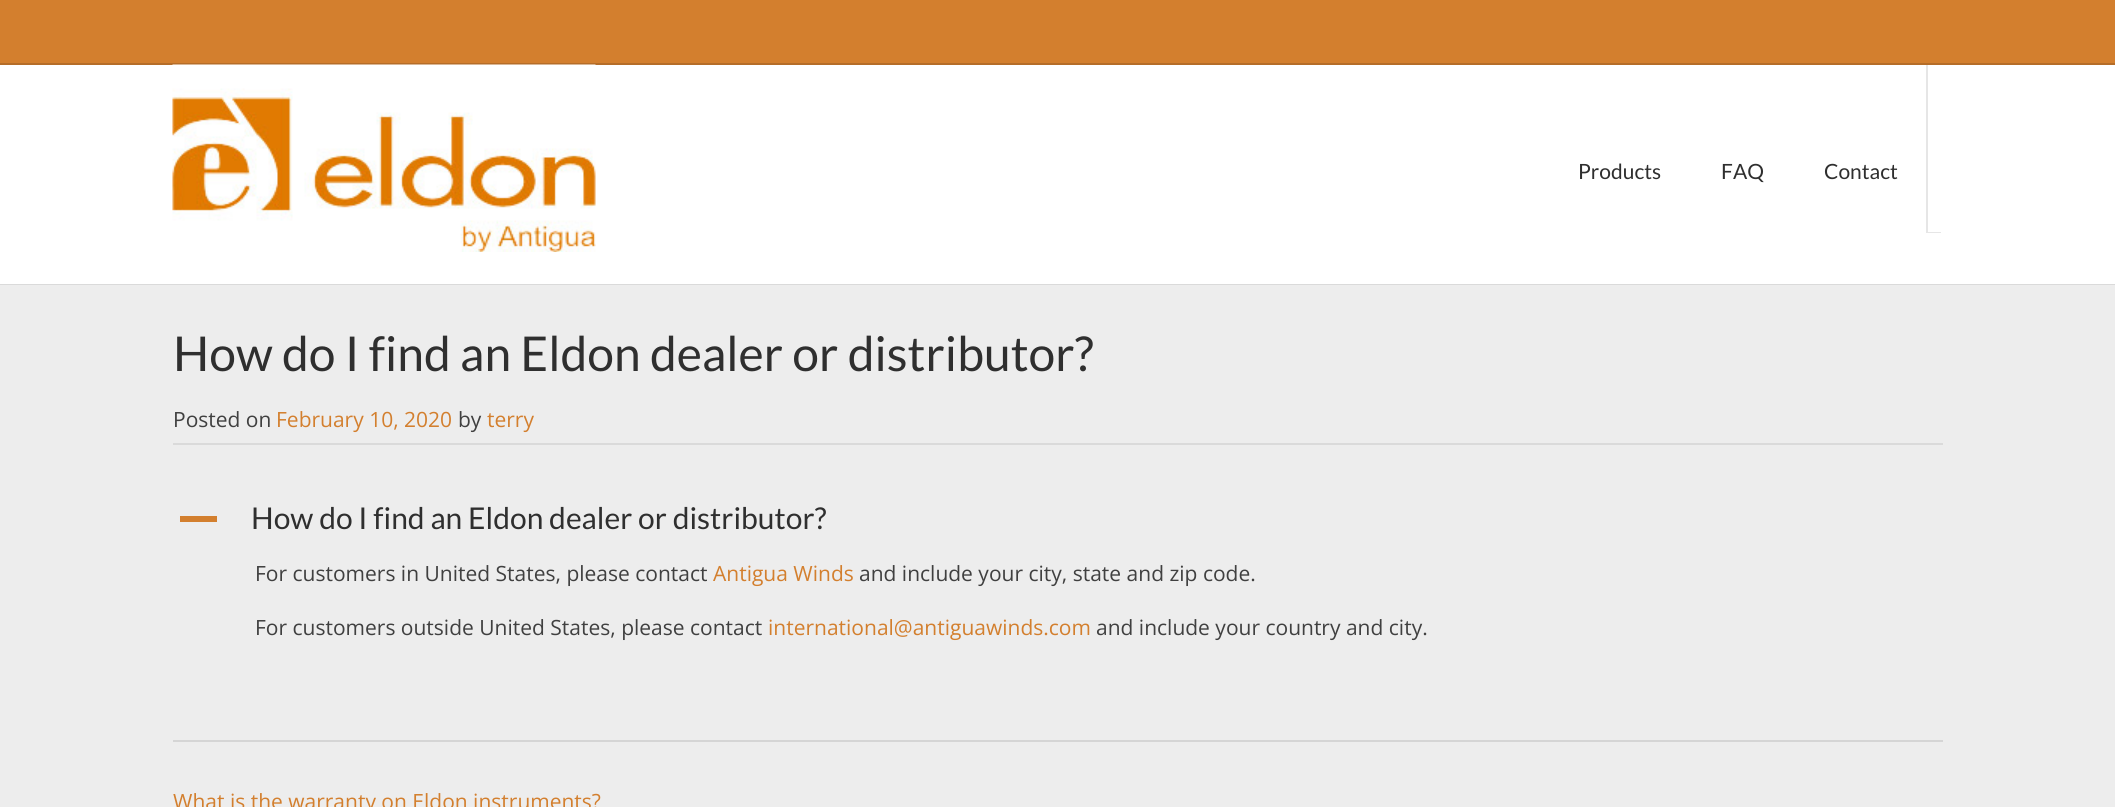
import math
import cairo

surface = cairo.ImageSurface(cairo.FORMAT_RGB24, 2115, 807)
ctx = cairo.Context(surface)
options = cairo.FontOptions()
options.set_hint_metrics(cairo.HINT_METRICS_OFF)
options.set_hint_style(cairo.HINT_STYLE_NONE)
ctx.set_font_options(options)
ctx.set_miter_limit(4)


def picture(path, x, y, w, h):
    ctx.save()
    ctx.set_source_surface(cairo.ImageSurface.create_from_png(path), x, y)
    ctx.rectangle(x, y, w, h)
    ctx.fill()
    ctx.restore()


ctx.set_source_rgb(0.929, 0.929, 0.929)
ctx.paint()
ctx.set_source_rgb(0.855, 0.855, 0.855)
ctx.rectangle(0, 284, 2115, 1)
ctx.fill()
ctx.set_source_rgb(1, 1, 1)
ctx.rectangle(0, 65, 2115, 219)
ctx.fill()
ctx.set_source_rgb(0.827, 0.498, 0.18)
ctx.rectangle(0, 0, 2115, 63)
ctx.fill()
ctx.set_source_rgb(0.71, 0.427, 0.157)
ctx.rectangle(0, 63, 2115, 2)
ctx.fill()
picture("img1.png", 172, 64, 424, 188)
ctx.select_font_face("Lato")
ctx.set_font_size(21)
ctx.set_source_rgb(0.184, 0.184, 0.184)
ctx.move_to(1578, 179)
ctx.show_text("Products")
ctx.move_to(1721, 179)
ctx.show_text("FAQ")
ctx.move_to(1824, 179)
ctx.show_text("Contact")
ctx.set_source_rgb(0.902, 0.902, 0.902)
ctx.new_path()
ctx.move_to(1926, 65)
ctx.line_to(1926, 233)
ctx.line_to(1941, 233)
ctx.line_to(1941, 232)
ctx.line_to(1928, 232)
ctx.line_to(1928, 65)
ctx.close_path()
ctx.fill()
ctx.set_source_rgb(0.835, 0.835, 0.835)
ctx.rectangle(173, 740, 1770, 2)
ctx.fill()
ctx.set_source_rgb(0.855, 0.855, 0.855)
ctx.rectangle(173, 443, 1770, 2)
ctx.fill()
ctx.set_font_size(48)
ctx.set_source_rgb(0.184, 0.184, 0.184)
ctx.move_to(173, 371)
ctx.show_text("How do I find an Eldon dealer or distributor?")
ctx.select_font_face("Open Sans")
ctx.set_font_size(21)
ctx.set_source_rgb(0.251, 0.251, 0.251)
ctx.move_to(173, 427)
ctx.show_text("Posted on")
ctx.set_source_rgb(0.827, 0.498, 0.18)
ctx.move_to(276, 427)
ctx.show_text("February 10, 2020")
ctx.set_source_rgb(0.251, 0.251, 0.251)
ctx.move_to(458, 427)
ctx.show_text("by")
ctx.set_source_rgb(0.827, 0.498, 0.18)
ctx.move_to(487, 427)
ctx.show_text("terry")
ctx.rectangle(180, 516, 37, 6)
ctx.fill()
ctx.select_font_face("Lato")
ctx.set_font_size(30)
ctx.set_source_rgb(0.184, 0.184, 0.184)
ctx.move_to(251, 529)
ctx.show_text("How do I find an Eldon dealer or distributor?")
ctx.select_font_face("Open Sans")
ctx.set_font_size(21)
ctx.set_source_rgb(0.251, 0.251, 0.251)
ctx.move_to(255, 581)
ctx.show_text("For customers in United States, please contact")
ctx.set_source_rgb(0.827, 0.498, 0.18)
ctx.move_to(713, 581)
ctx.show_text("Antigua Winds")
ctx.set_source_rgb(0.251, 0.251, 0.251)
ctx.move_to(859, 581)
ctx.show_text("and include your city, state and zip code.")
ctx.move_to(255, 635)
ctx.show_text("For customers outside United States, please contact")
ctx.set_source_rgb(0.827, 0.498, 0.18)
ctx.move_to(768, 635)
ctx.show_text("international@antiguawinds.com")
ctx.set_source_rgb(0.251, 0.251, 0.251)
ctx.move_to(1096, 635)
ctx.show_text("and include your country and city.")
ctx.set_source_rgb(0.827, 0.498, 0.18)
ctx.move_to(173, 809)
ctx.show_text("What is the warranty on Eldon instruments?")
surface.write_to_png("page.png")
